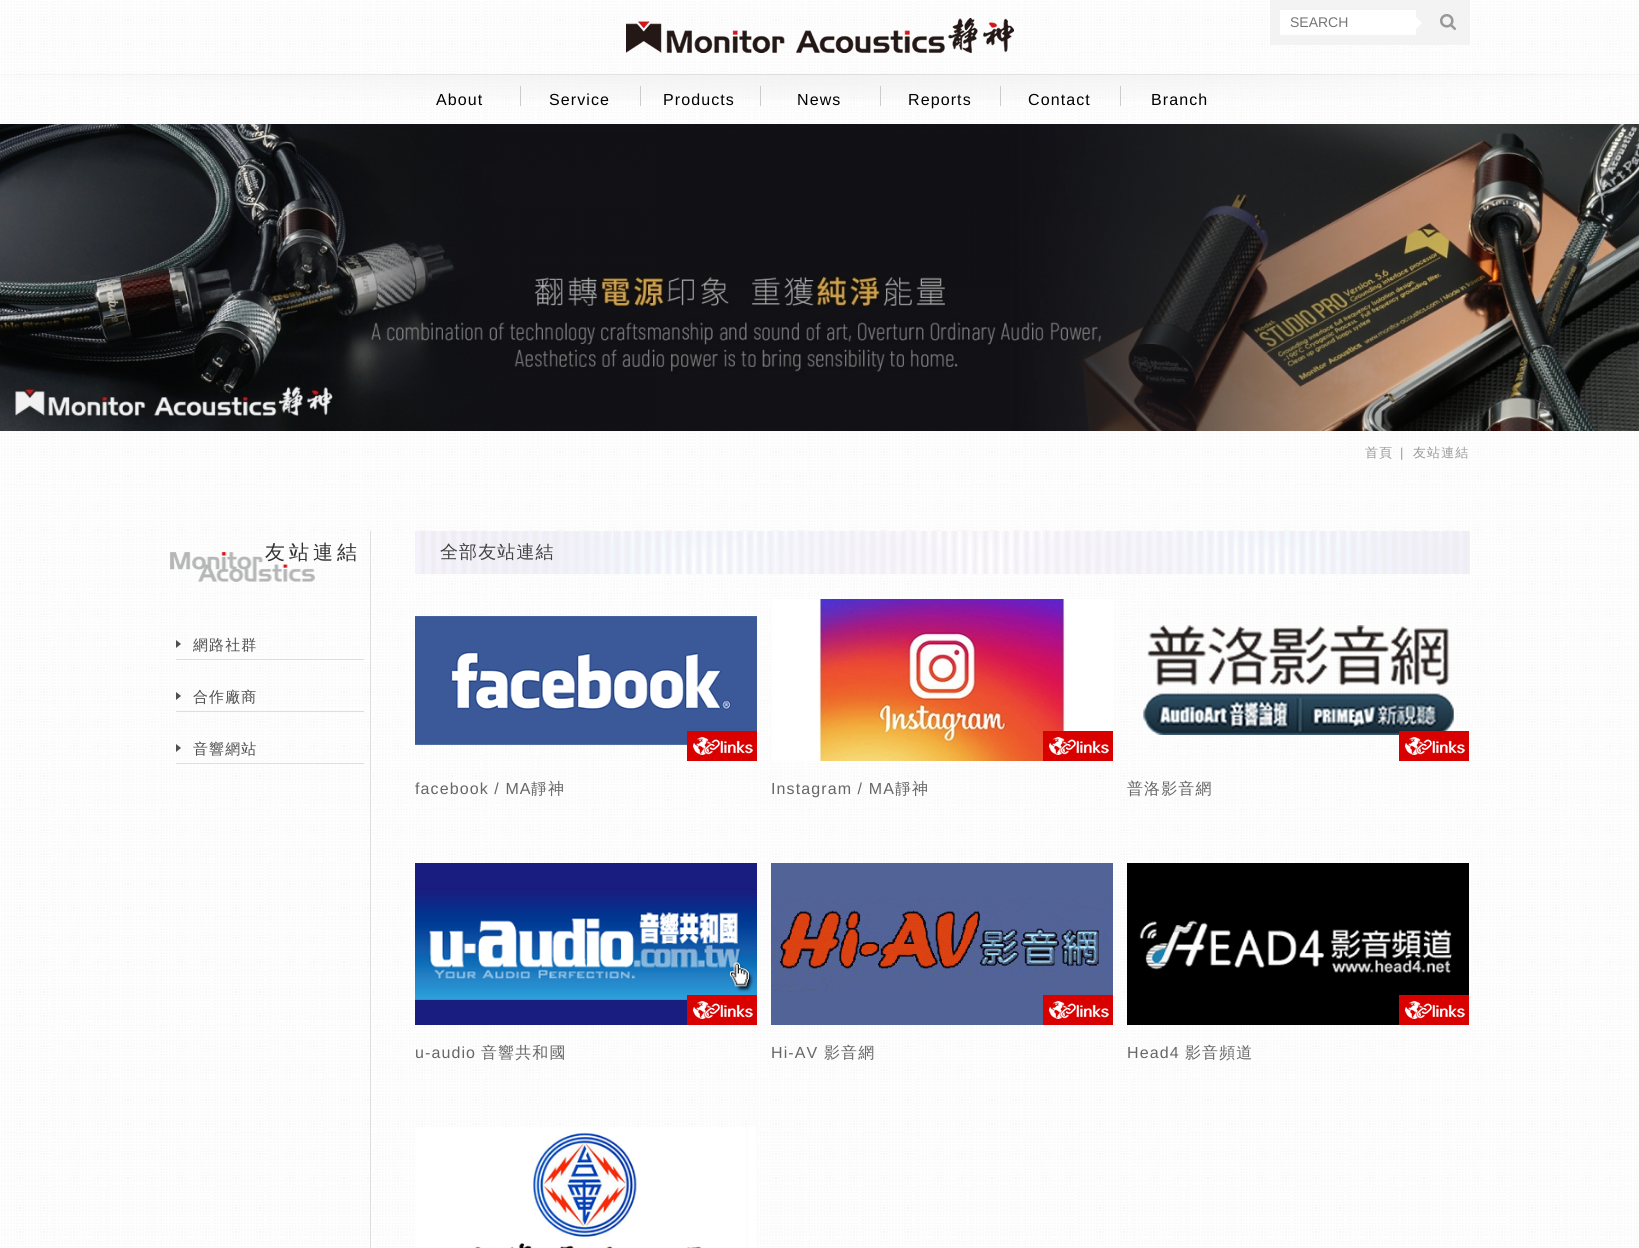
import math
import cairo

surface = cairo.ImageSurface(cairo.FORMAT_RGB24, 1639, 1248)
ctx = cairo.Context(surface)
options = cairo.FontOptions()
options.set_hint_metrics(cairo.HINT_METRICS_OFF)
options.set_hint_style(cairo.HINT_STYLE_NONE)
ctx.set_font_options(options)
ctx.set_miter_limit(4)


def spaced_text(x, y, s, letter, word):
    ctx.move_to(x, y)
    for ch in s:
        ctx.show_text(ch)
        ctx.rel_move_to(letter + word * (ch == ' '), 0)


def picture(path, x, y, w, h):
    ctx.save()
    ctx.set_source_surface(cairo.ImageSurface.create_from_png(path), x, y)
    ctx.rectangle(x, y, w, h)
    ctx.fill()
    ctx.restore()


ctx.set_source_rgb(1, 1, 1)
ctx.paint()
picture("img1.png", 1, 1, 1638, 1246)
picture("img2.png", 0, 74, 1639, 26)
picture("img3.png", 626, 18, 388, 35)
ctx.set_source_rgb(0.953, 0.953, 0.953)
ctx.rectangle(1270, 0, 200, 45)
ctx.fill()
ctx.set_source_rgb(1, 1, 1)
ctx.rectangle(1280, 10, 136, 25)
ctx.fill()
ctx.select_font_face("Liberation Sans")
ctx.set_font_size(14)
ctx.set_source_rgb(0.459, 0.459, 0.459)
ctx.move_to(1290, 27)
ctx.show_text("SEARCH")
picture("img4.png", 1440, 14, 16, 16)
ctx.set_source_rgb(1, 1, 1)
ctx.new_path()
ctx.move_to(1415, 30)
ctx.line_to(1415, 16)
ctx.line_to(1422, 23)
ctx.close_path()
ctx.fill()
ctx.set_font_size(16)
ctx.set_source_rgb(0, 0, 0)
spaced_text(436, 105, "About", 1.1, 0)
ctx.set_source_rgb(0.8, 0.8, 0.8)
ctx.rectangle(520, 86, 1, 20)
ctx.fill()
ctx.set_source_rgb(0, 0, 0)
spaced_text(549, 105, "Service", 1.1, 0)
ctx.set_source_rgb(0.8, 0.8, 0.8)
ctx.rectangle(640, 86, 1, 20)
ctx.fill()
ctx.set_source_rgb(0, 0, 0)
spaced_text(663, 105, "Products", 1.1, 0)
ctx.set_source_rgb(0.8, 0.8, 0.8)
ctx.rectangle(760, 86, 1, 20)
ctx.fill()
ctx.set_source_rgb(0, 0, 0)
spaced_text(797, 105, "News", 1.1, 0)
ctx.set_source_rgb(0.8, 0.8, 0.8)
ctx.rectangle(880, 86, 1, 20)
ctx.fill()
ctx.set_source_rgb(0, 0, 0)
spaced_text(908, 105, "Reports", 1.1, 0)
ctx.set_source_rgb(0.8, 0.8, 0.8)
ctx.rectangle(1000, 86, 1, 20)
ctx.fill()
ctx.set_source_rgb(0, 0, 0)
spaced_text(1028, 105, "Contact", 1.1, 0)
ctx.set_source_rgb(0.8, 0.8, 0.8)
ctx.rectangle(1120, 86, 1, 20)
ctx.fill()
ctx.set_source_rgb(0, 0, 0)
spaced_text(1151, 105, "Branch", 1.1, 0)
picture("img5.png", 0, 124, 1639, 307)
ctx.select_font_face("WenQuanYi Zen Hei Medium")
ctx.set_font_size(13)
ctx.set_source_rgb(0.6, 0.6, 0.6)
spaced_text(1365, 457, "首頁", 1.1, 0)
ctx.select_font_face("Liberation Sans")
spaced_text(1400, 457, "|", 1.1, 0)
ctx.select_font_face("WenQuanYi Zen Hei Medium")
spaced_text(1413, 457, "友站連結", 1.1, 0)
ctx.set_source_rgb(0.871, 0.871, 0.871)
ctx.rectangle(370, 531, 1, 717)
ctx.fill()
picture("img6.png", 170, 552, 145, 30)
ctx.set_font_size(20)
ctx.set_source_rgb(0.2, 0.2, 0.2)
spaced_text(265, 559, "友站連結", 4, 0)
ctx.set_source_rgb(0.871, 0.871, 0.871)
ctx.rectangle(176, 659, 188, 1)
ctx.fill()
ctx.set_source_rgb(0.31, 0.31, 0.31)
ctx.new_path()
ctx.move_to(176, 648)
ctx.line_to(176, 640)
ctx.line_to(181, 644)
ctx.close_path()
ctx.fill()
ctx.set_font_size(15)
spaced_text(193, 650, "網路社群", 1.1, 0)
ctx.set_source_rgb(0.871, 0.871, 0.871)
ctx.rectangle(176, 711, 188, 1)
ctx.fill()
ctx.set_source_rgb(0.31, 0.31, 0.31)
ctx.new_path()
ctx.move_to(176, 700)
ctx.line_to(176, 692)
ctx.line_to(181, 696)
ctx.close_path()
ctx.fill()
spaced_text(193, 702, "合作廠商", 1.1, 0)
ctx.set_source_rgb(0.871, 0.871, 0.871)
ctx.rectangle(176, 763, 188, 1)
ctx.fill()
ctx.set_source_rgb(0.31, 0.31, 0.31)
ctx.new_path()
ctx.move_to(176, 752)
ctx.line_to(176, 744)
ctx.line_to(181, 748)
ctx.close_path()
ctx.fill()
spaced_text(193, 754, "音響網站", 1.1, 0)
picture("img7.png", 415, 531, 1055, 43)
ctx.set_font_size(18)
ctx.set_source_rgb(0.267, 0.267, 0.267)
spaced_text(440, 558, "全部友站連結", 1.1, 0)
picture("img8.png", 415, 616, 342, 129)
picture("img9.png", 687, 731, 70, 30)
ctx.select_font_face("Liberation Sans")
ctx.set_font_size(16)
ctx.set_source_rgb(0.4, 0.4, 0.4)
spaced_text(415, 794, "facebook / MA", 1.1, 0)
ctx.select_font_face("WenQuanYi Zen Hei Medium")
spaced_text(531, 794, "靜神", 1.1, 0)
picture("img10.png", 772, 599, 341, 162)
picture("img9.png", 1043, 731, 70, 30)
ctx.select_font_face("Liberation Sans")
spaced_text(771, 794, "Instagram / MA", 1.1, 0)
ctx.select_font_face("WenQuanYi Zen Hei Medium")
spaced_text(895, 794, "靜神", 1.1, 0)
picture("img11.png", 1143, 625, 311, 110)
picture("img9.png", 1399, 731, 70, 30)
spaced_text(1127, 794, "普洛影音網", 1.1, 0)
picture("img12.png", 415, 863, 342, 162)
picture("img9.png", 687, 995, 70, 30)
ctx.select_font_face("Liberation Sans")
spaced_text(415, 1058, "u-audio", 1.1, 0)
ctx.select_font_face("WenQuanYi Zen Hei Medium")
spaced_text(481, 1058, "音響共和國", 1.1, 0)
picture("img13.png", 771, 863, 342, 162)
picture("img9.png", 1043, 995, 70, 30)
ctx.select_font_face("Liberation Sans")
spaced_text(771, 1058, "Hi-AV", 1.1, 0)
ctx.select_font_face("WenQuanYi Zen Hei Medium")
spaced_text(824, 1058, "影音網", 1.1, 0)
picture("img14.png", 1127, 863, 342, 162)
picture("img9.png", 1399, 995, 70, 30)
ctx.select_font_face("Liberation Sans")
spaced_text(1127, 1058, "Head4", 1.1, 0)
ctx.select_font_face("WenQuanYi Zen Hei Medium")
spaced_text(1185, 1058, "影音頻道", 1.1, 0)
picture("img15.png", 416, 1127, 340, 121)
surface.write_to_png("page.png")
